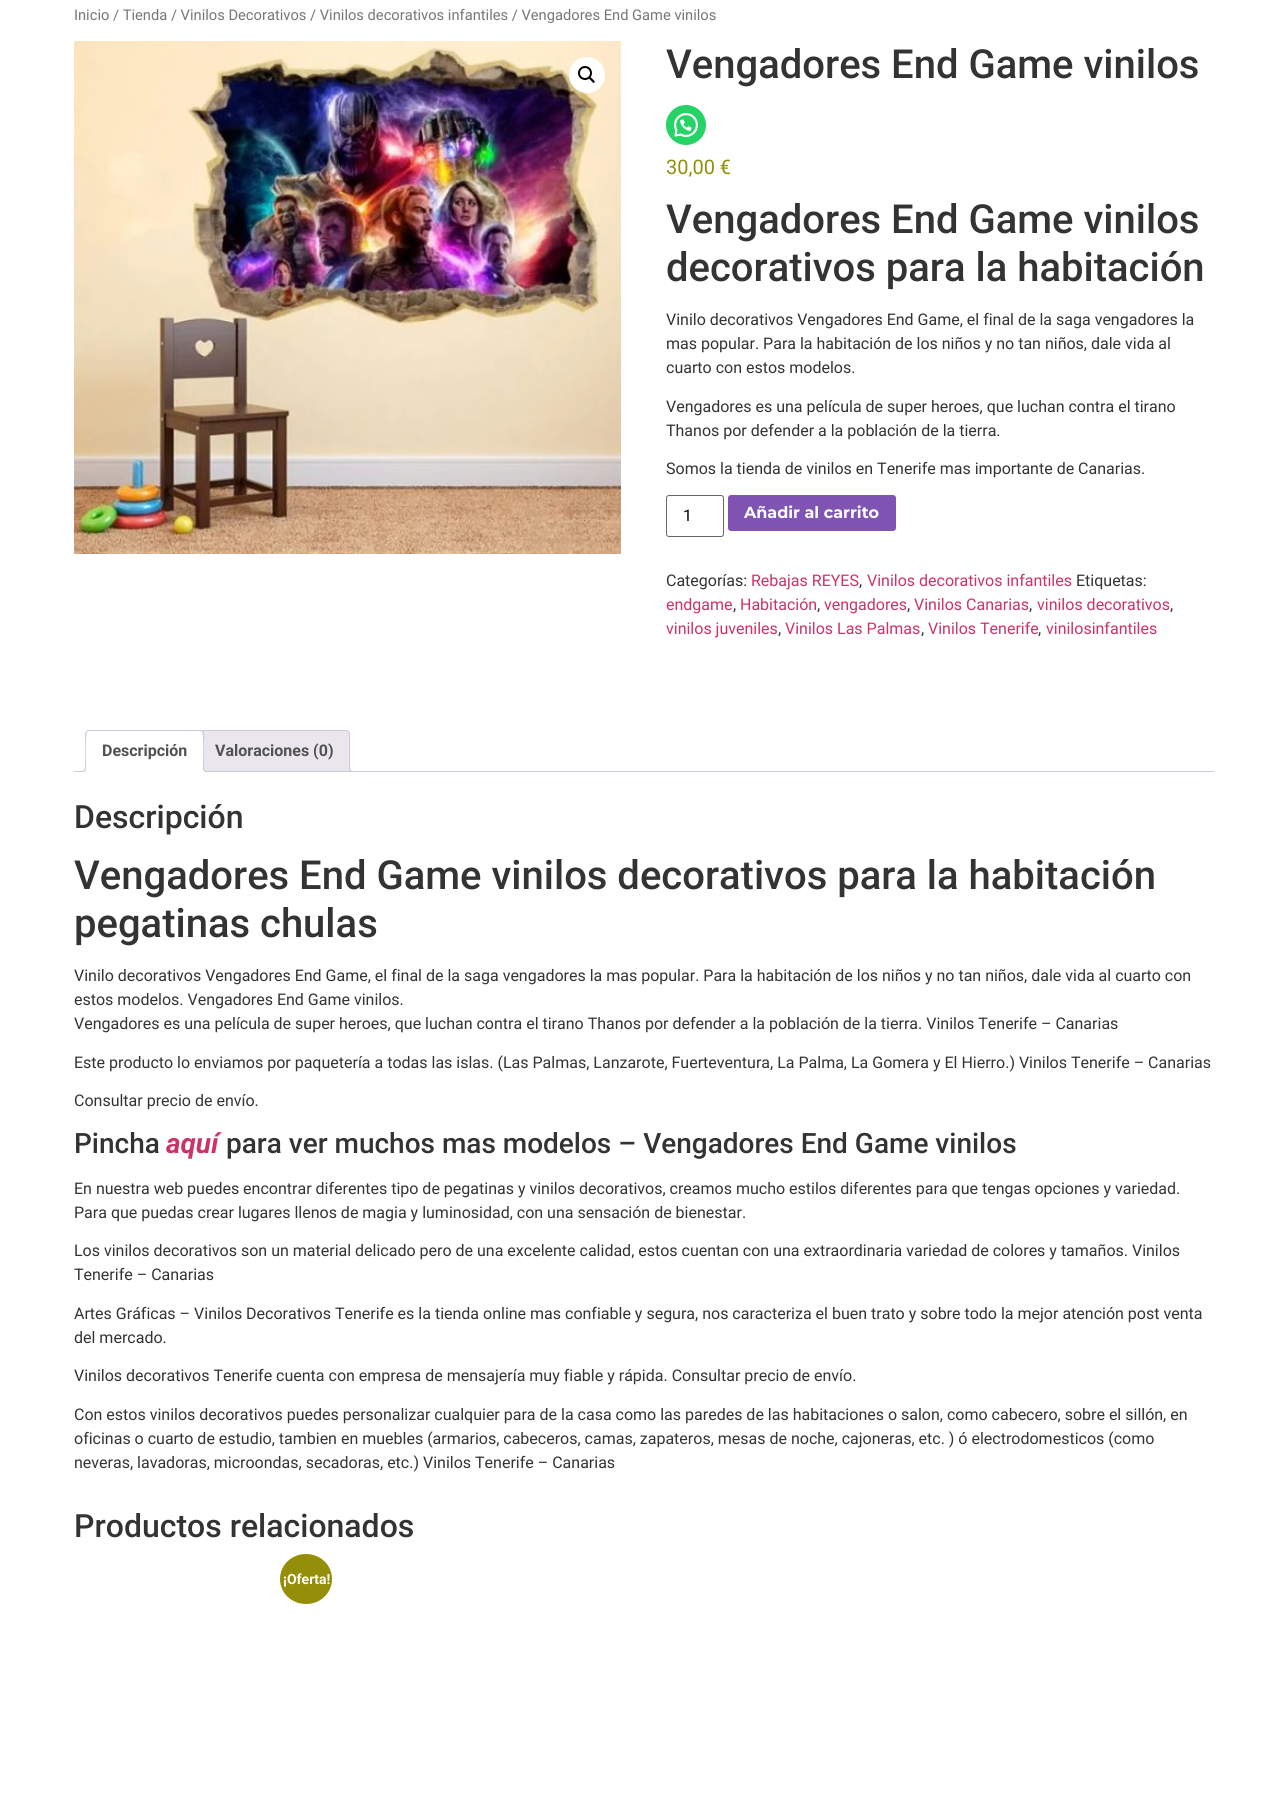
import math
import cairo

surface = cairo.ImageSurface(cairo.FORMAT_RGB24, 1287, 1800)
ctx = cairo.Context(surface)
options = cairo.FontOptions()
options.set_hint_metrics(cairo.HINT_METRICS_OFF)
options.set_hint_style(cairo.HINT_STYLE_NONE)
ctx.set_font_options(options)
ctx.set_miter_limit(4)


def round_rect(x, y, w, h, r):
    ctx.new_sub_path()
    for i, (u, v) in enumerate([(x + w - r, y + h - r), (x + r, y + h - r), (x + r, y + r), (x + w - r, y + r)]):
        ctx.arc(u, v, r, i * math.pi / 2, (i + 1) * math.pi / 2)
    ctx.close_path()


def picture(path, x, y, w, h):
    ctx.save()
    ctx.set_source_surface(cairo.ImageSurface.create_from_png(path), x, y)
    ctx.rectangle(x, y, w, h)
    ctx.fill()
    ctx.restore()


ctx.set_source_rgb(1, 1, 1)
ctx.paint()
ctx.select_font_face("Roboto")
ctx.set_font_size(14.7)
ctx.set_source_rgb(0.463, 0.463, 0.463)
ctx.move_to(74, 20)
ctx.show_text("Inicio / Tienda / Vinilos Decorativos / Vinilos decorativos infantiles / Vengadores End Game vinilos")
picture("img1.png", 74, 41, 547, 513)
ctx.set_source_rgb(1, 1, 1)
ctx.arc(587, 75, 18, 0, 2 * math.pi)
ctx.fill()
ctx.arc(585, 73, 6, 0, 2 * math.pi)
ctx.set_source_rgb(0, 0, 0)
ctx.stroke()
ctx.new_path()
ctx.move_to(589, 77)
ctx.curve_to(590, 76, 592, 78.5, 592.5, 79)
ctx.curve_to(593, 79.5, 595.5, 81.5, 594.5, 82.5)
ctx.curve_to(593.5, 84, 591.5, 81, 591, 80.5)
ctx.curve_to(590.5, 80, 587.5, 78, 589, 77)
ctx.close_path()
ctx.fill()
ctx.select_font_face("Roboto Medium")
ctx.set_font_size(40)
ctx.set_source_rgb(0.2, 0.2, 0.2)
ctx.move_to(666, 78)
ctx.show_text("Vengadores End Game vinilos")
ctx.set_source_rgb(0.145, 0.827, 0.4)
ctx.new_path()
ctx.arc(686, 125, 20, 0, 2 * math.pi)
ctx.fill()
picture("img2.png", 674, 113, 24, 24)
ctx.select_font_face("Roboto")
ctx.set_font_size(20)
ctx.set_source_rgb(0.584, 0.557, 0.035)
ctx.move_to(666, 174)
ctx.show_text("30,00 €")
ctx.select_font_face("Roboto Medium")
ctx.set_font_size(40)
ctx.set_source_rgb(0.2, 0.2, 0.2)
ctx.move_to(666, 233)
ctx.show_text("Vengadores End Game vinilos")
ctx.move_to(666, 281)
ctx.show_text("decorativos para la habitación")
ctx.select_font_face("Roboto")
ctx.set_font_size(16)
ctx.move_to(666, 325)
ctx.show_text("Vinilo decorativos Vengadores End Game, el final de la saga vengadores la")
ctx.move_to(666, 349)
ctx.show_text("mas popular. Para la habitación de los niños y no tan niños, dale vida al")
ctx.move_to(666, 373)
ctx.show_text("cuarto con estos modelos.")
ctx.move_to(666, 412)
ctx.show_text("Vengadores es una película de super heroes, que luchan contra el tirano")
ctx.move_to(666, 436)
ctx.show_text("Thanos por defender a la población de la tierra.")
ctx.move_to(666, 474)
ctx.show_text("Somos la tienda de vinilos en Tenerife mas importante de Canarias.")
round_rect(666.5, 495.5, 57, 41, 2.5)
ctx.set_source_rgb(0.4, 0.4, 0.4)
ctx.set_line_width(1)
ctx.stroke()
ctx.set_source_rgb(0, 0, 0)
ctx.move_to(683, 521)
ctx.show_text("1")
ctx.set_source_rgb(0.498, 0.329, 0.702)
round_rect(728, 495, 168, 36, 3)
ctx.fill()
ctx.select_font_face("Montserrat", cairo.FONT_SLANT_NORMAL, cairo.FONT_WEIGHT_BOLD)
ctx.set_source_rgb(1, 1, 1)
ctx.move_to(744, 518)
ctx.show_text("Añadir al carrito")
ctx.select_font_face("Roboto")
ctx.set_source_rgb(0.2, 0.2, 0.2)
ctx.move_to(666, 586)
ctx.show_text("Categorías:")
ctx.set_source_rgb(0.8, 0.2, 0.4)
ctx.move_to(751, 586)
ctx.show_text("Rebajas REYES")
ctx.set_source_rgb(0.2, 0.2, 0.2)
ctx.move_to(859, 586)
ctx.show_text(",")
ctx.set_source_rgb(0.8, 0.2, 0.4)
ctx.move_to(867, 586)
ctx.show_text("Vinilos decorativos infantiles")
ctx.set_source_rgb(0.2, 0.2, 0.2)
ctx.move_to(1076, 586)
ctx.show_text("Etiquetas:")
ctx.set_source_rgb(0.8, 0.2, 0.4)
ctx.move_to(666, 610)
ctx.show_text("endgame")
ctx.set_source_rgb(0.2, 0.2, 0.2)
ctx.move_to(733, 610)
ctx.show_text(",")
ctx.set_source_rgb(0.8, 0.2, 0.4)
ctx.move_to(740, 610)
ctx.show_text("Habitación")
ctx.set_source_rgb(0.2, 0.2, 0.2)
ctx.move_to(817, 610)
ctx.show_text(",")
ctx.set_source_rgb(0.8, 0.2, 0.4)
ctx.move_to(824, 610)
ctx.show_text("vengadores")
ctx.set_source_rgb(0.2, 0.2, 0.2)
ctx.move_to(907, 610)
ctx.show_text(",")
ctx.set_source_rgb(0.8, 0.2, 0.4)
ctx.move_to(914, 610)
ctx.show_text("Vinilos Canarias")
ctx.set_source_rgb(0.2, 0.2, 0.2)
ctx.move_to(1029, 610)
ctx.show_text(",")
ctx.set_source_rgb(0.8, 0.2, 0.4)
ctx.move_to(1037, 610)
ctx.show_text("vinilos decorativos")
ctx.set_source_rgb(0.2, 0.2, 0.2)
ctx.move_to(1170, 610)
ctx.show_text(",")
ctx.set_source_rgb(0.8, 0.2, 0.4)
ctx.move_to(666, 634)
ctx.show_text("vinilos juveniles")
ctx.set_source_rgb(0.2, 0.2, 0.2)
ctx.move_to(778, 634)
ctx.show_text(",")
ctx.set_source_rgb(0.8, 0.2, 0.4)
ctx.move_to(785, 634)
ctx.show_text("Vinilos Las Palmas")
ctx.set_source_rgb(0.2, 0.2, 0.2)
ctx.move_to(921, 634)
ctx.show_text(",")
ctx.set_source_rgb(0.8, 0.2, 0.4)
ctx.move_to(928, 634)
ctx.show_text("Vinilos Tenerife")
ctx.set_source_rgb(0.2, 0.2, 0.2)
ctx.move_to(1038, 634)
ctx.show_text(",")
ctx.set_source_rgb(0.8, 0.2, 0.4)
ctx.move_to(1046, 634)
ctx.show_text("vinilosinfantiles")
ctx.set_source_rgb(0.914, 0.902, 0.929)
ctx.new_path()
ctx.move_to(202, 730.5)
ctx.line_to(346, 730.5)
ctx.curve_to(348, 730.5, 349.5, 732, 349.5, 734)
ctx.line_to(349.5, 771.5)
ctx.line_to(198.5, 771.5)
ctx.line_to(198.5, 734)
ctx.curve_to(198.5, 732, 200, 730.5, 202, 730.5)
ctx.close_path()
ctx.fill_preserve()
ctx.set_source_rgb(0.812, 0.784, 0.847)
ctx.stroke()
ctx.save()
ctx.rectangle(74, 730, 1140, 42)
ctx.clip()
ctx.set_source_rgb(0.914, 0.902, 0.929)
ctx.new_path()
ctx.move_to(347, 769)
ctx.curve_to(347, 772.5, 348.5, 774, 352, 774)
ctx.line_to(352, 772)
ctx.curve_to(350.5, 771.5, 349.5, 770.5, 349, 769)
ctx.close_path()
ctx.fill()
ctx.restore()
ctx.set_fill_rule(cairo.FILL_RULE_EVEN_ODD)
ctx.new_path()
ctx.move_to(349, 767)
ctx.line_to(354, 767)
ctx.line_to(354, 772)
ctx.curve_to(351.5, 772, 349, 771, 349, 768)
ctx.close_path()
ctx.move_to(350, 767)
ctx.line_to(354, 767)
ctx.line_to(354, 771)
ctx.curve_to(352, 771, 350, 770.5, 350, 768)
ctx.close_path()
ctx.fill()
ctx.rectangle(74, 771, 1140, 1)
ctx.fill()
ctx.set_source_rgb(1, 1, 1)
ctx.new_path()
ctx.move_to(89, 730)
ctx.line_to(200, 730)
ctx.curve_to(202, 730, 204, 732, 204, 734)
ctx.line_to(204, 772)
ctx.line_to(85, 772)
ctx.line_to(85, 734)
ctx.curve_to(85, 732, 87, 730, 89, 730)
ctx.close_path()
ctx.fill()
ctx.set_source_rgb(0.812, 0.784, 0.847)
ctx.set_fill_rule(cairo.FILL_RULE_WINDING)
ctx.new_path()
ctx.move_to(89, 730)
ctx.line_to(86, 731)
ctx.line_to(87, 732)
ctx.line_to(89, 731)
ctx.line_to(200, 731)
ctx.line_to(202, 732)
ctx.line_to(203, 731)
ctx.line_to(200, 730)
ctx.close_path()
ctx.fill()
ctx.new_path()
ctx.move_to(204, 772)
ctx.line_to(204, 734)
ctx.curve_to(204, 733, 204, 732, 203, 731)
ctx.line_to(202, 732)
ctx.curve_to(204, 734, 203, 766, 203, 771)
ctx.close_path()
ctx.fill()
ctx.set_source_rgb(1, 1, 1)
ctx.new_path()
ctx.move_to(204, 772)
ctx.line_to(203, 771)
ctx.line_to(86, 771)
ctx.line_to(85, 772)
ctx.close_path()
ctx.fill()
ctx.set_source_rgb(0.812, 0.784, 0.847)
ctx.new_path()
ctx.move_to(85, 772)
ctx.line_to(86, 771)
ctx.curve_to(86, 766, 85, 734, 87, 732)
ctx.line_to(86, 731)
ctx.line_to(85, 734)
ctx.close_path()
ctx.fill()
ctx.select_font_face("Roboto", cairo.FONT_SLANT_NORMAL, cairo.FONT_WEIGHT_BOLD)
ctx.set_source_rgb(0.318, 0.318, 0.318)
ctx.move_to(102, 756)
ctx.show_text("Descripción")
ctx.save()
ctx.rectangle(74, 730, 1140, 42)
ctx.clip()
ctx.set_source_rgb(1, 1, 1)
ctx.new_path()
ctx.move_to(83, 772)
ctx.line_to(83, 774)
ctx.curve_to(86.5, 774, 88, 772.5, 88, 769)
ctx.line_to(86, 769)
ctx.curve_to(85.5, 770.5, 84.5, 771.5, 83, 772)
ctx.close_path()
ctx.fill()
ctx.restore()
ctx.set_source_rgb(0.812, 0.784, 0.847)
ctx.set_fill_rule(cairo.FILL_RULE_EVEN_ODD)
ctx.new_path()
ctx.move_to(81, 767)
ctx.line_to(86, 767)
ctx.curve_to(86, 770.5, 84.5, 772, 81, 772)
ctx.close_path()
ctx.move_to(81, 767)
ctx.line_to(85, 767)
ctx.curve_to(85, 770, 84, 771, 81, 771)
ctx.close_path()
ctx.fill()
ctx.save()
ctx.set_fill_rule(cairo.FILL_RULE_WINDING)
ctx.rectangle(74, 730, 1140, 42)
ctx.clip()
ctx.set_source_rgb(1, 1, 1)
ctx.new_path()
ctx.move_to(201, 769)
ctx.curve_to(201, 772.5, 202.5, 774, 206, 774)
ctx.line_to(206, 772)
ctx.curve_to(204.5, 771.5, 203.5, 770.5, 203, 769)
ctx.close_path()
ctx.fill()
ctx.restore()
ctx.new_path()
ctx.move_to(203, 767)
ctx.line_to(208, 767)
ctx.line_to(208, 772)
ctx.curve_to(205.5, 772, 203, 771, 203, 768)
ctx.close_path()
ctx.move_to(204, 767)
ctx.line_to(208, 767)
ctx.line_to(208, 771)
ctx.curve_to(206, 771, 204, 770.5, 204, 768)
ctx.close_path()
ctx.fill()
ctx.set_source_rgb(0.318, 0.318, 0.318)
ctx.move_to(215, 756)
ctx.show_text("Valoraciones (0)")
ctx.select_font_face("Roboto Medium")
ctx.set_font_size(32)
ctx.set_source_rgb(0.2, 0.2, 0.2)
ctx.move_to(74, 828)
ctx.show_text("Descripción")
ctx.set_font_size(40)
ctx.move_to(74, 889)
ctx.show_text("Vengadores End Game vinilos decorativos para la habitación")
ctx.move_to(74, 937)
ctx.show_text("pegatinas chulas")
ctx.select_font_face("Roboto")
ctx.set_font_size(16)
ctx.move_to(74, 981)
ctx.show_text("Vinilo decorativos Vengadores End Game, el final de la saga vengadores la mas popular. Para la habitación de los niños y no tan niños, dale vida al cuarto con")
ctx.move_to(74, 1005)
ctx.show_text("estos modelos. Vengadores End Game vinilos.")
ctx.move_to(74, 1029)
ctx.show_text("Vengadores es una película de super heroes, que luchan contra el tirano Thanos por defender a la población de la tierra. Vinilos Tenerife – Canarias")
ctx.move_to(74, 1068)
ctx.show_text("Este producto lo enviamos por paquetería a todas las islas. (Las Palmas, Lanzarote, Fuerteventura, La Palma, La Gomera y El Hierro.) Vinilos Tenerife – Canarias")
ctx.move_to(74, 1106)
ctx.show_text("Consultar precio de envío.")
ctx.select_font_face("Roboto Medium")
ctx.set_font_size(28)
ctx.move_to(74, 1153)
ctx.show_text("Pincha")
ctx.select_font_face("Roboto", cairo.FONT_SLANT_ITALIC, cairo.FONT_WEIGHT_BOLD)
ctx.set_source_rgb(0.8, 0.2, 0.4)
ctx.move_to(166, 1153)
ctx.show_text("aquí")
ctx.select_font_face("Roboto Medium")
ctx.set_source_rgb(0.2, 0.2, 0.2)
ctx.move_to(226, 1153)
ctx.show_text("para ver muchos mas modelos – Vengadores End Game vinilos")
ctx.select_font_face("Roboto")
ctx.set_font_size(16)
ctx.move_to(74, 1194)
ctx.show_text("En nuestra web puedes encontrar diferentes tipo de pegatinas y vinilos decorativos, creamos mucho estilos diferentes para que tengas opciones y variedad.")
ctx.move_to(74, 1218)
ctx.show_text("Para que puedas crear lugares llenos de magia y luminosidad, con una sensación de bienestar.")
ctx.move_to(74, 1256)
ctx.show_text("Los vinilos decorativos son un material delicado pero de una excelente calidad, estos cuentan con una extraordinaria variedad de colores y tamaños. Vinilos")
ctx.move_to(74, 1280)
ctx.show_text("Tenerife – Canarias")
ctx.move_to(74, 1319)
ctx.show_text("Artes Gráficas – Vinilos Decorativos Tenerife es la tienda online mas confiable y segura, nos caracteriza el buen trato y sobre todo la mejor atención post venta")
ctx.move_to(74, 1343)
ctx.show_text("del mercado.")
ctx.move_to(74, 1381)
ctx.show_text("Vinilos decorativos Tenerife cuenta con empresa de mensajería muy fiable y rápida. Consultar precio de envío.")
ctx.move_to(74, 1420)
ctx.show_text("Con estos vinilos decorativos puedes personalizar cualquier para de la casa como las paredes de las habitaciones o salon, como cabecero, sobre el sillón, en")
ctx.move_to(74, 1444)
ctx.show_text("oficinas o cuarto de estudio, tambien en muebles (armarios, cabeceros, camas, zapateros, mesas de noche, cajoneras, etc. ) ó electrodomesticos (como")
ctx.move_to(74, 1468)
ctx.show_text("neveras, lavadoras, microondas, secadoras, etc.) Vinilos Tenerife – Canarias")
ctx.select_font_face("Roboto Medium")
ctx.set_font_size(32)
ctx.move_to(74, 1537)
ctx.show_text("Productos relacionados")
ctx.set_source_rgb(0.584, 0.557, 0.035)
ctx.new_path()
ctx.move_to(306, 1554)
ctx.curve_to(320.5, 1554, 332, 1565, 332, 1579)
ctx.curve_to(332, 1593, 320.5, 1604, 306, 1604)
ctx.curve_to(291.5, 1604, 280, 1593, 280, 1579)
ctx.curve_to(280, 1565, 291.5, 1554, 306, 1554)
ctx.close_path()
ctx.fill()
ctx.select_font_face("Roboto", cairo.FONT_SLANT_NORMAL, cairo.FONT_WEIGHT_BOLD)
ctx.set_font_size(14)
ctx.set_source_rgb(1, 1, 1)
ctx.move_to(283, 1584)
ctx.show_text("¡Oferta!")
surface.write_to_png("page.png")
